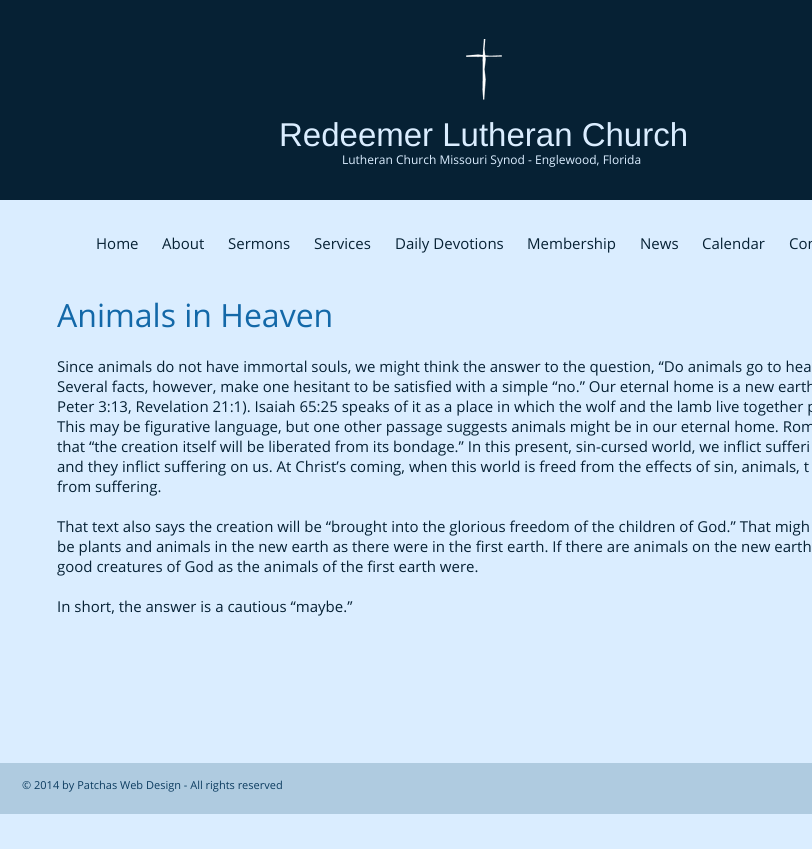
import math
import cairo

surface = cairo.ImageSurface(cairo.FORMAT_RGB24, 812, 849)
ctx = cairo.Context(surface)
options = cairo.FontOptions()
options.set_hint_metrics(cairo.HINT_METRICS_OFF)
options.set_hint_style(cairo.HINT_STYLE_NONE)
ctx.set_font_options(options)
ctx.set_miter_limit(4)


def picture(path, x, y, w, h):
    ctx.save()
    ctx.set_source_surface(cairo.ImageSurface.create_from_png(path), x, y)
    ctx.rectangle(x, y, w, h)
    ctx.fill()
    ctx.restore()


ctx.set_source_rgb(0.855, 0.929, 1)
ctx.paint()
ctx.set_source_rgb(0.024, 0.129, 0.204)
ctx.rectangle(0, 0, 812, 200)
ctx.fill()
picture("img1.png", 466, 39, 36, 61)
ctx.select_font_face("Liberation Sans")
ctx.set_font_size(33)
ctx.set_source_rgb(0.855, 0.929, 1)
ctx.move_to(279, 146)
ctx.show_text("Redeemer Lutheran Church")
ctx.select_font_face("Open Sans")
ctx.set_font_size(12)
ctx.move_to(342, 164)
ctx.show_text("Lutheran Church Missouri Synod - Englewood, Florida")
ctx.set_font_size(15)
ctx.set_source_rgb(0.024, 0.129, 0.204)
ctx.move_to(96, 249)
ctx.show_text("Home")
ctx.move_to(162, 249)
ctx.show_text("About")
ctx.move_to(228, 249)
ctx.show_text("Sermons")
ctx.move_to(314, 249)
ctx.show_text("Services")
ctx.move_to(395, 249)
ctx.show_text("Daily Devotions")
ctx.move_to(527, 249)
ctx.show_text("Membership")
ctx.move_to(640, 249)
ctx.show_text("News")
ctx.move_to(702, 249)
ctx.show_text("Calendar")
ctx.move_to(789, 249)
ctx.show_text("Con")
ctx.set_font_size(32)
ctx.set_source_rgb(0.078, 0.408, 0.659)
ctx.move_to(57, 327)
ctx.show_text("Animals in Heaven")
ctx.set_font_size(15)
ctx.set_source_rgb(0.024, 0.129, 0.204)
ctx.move_to(57, 372)
ctx.show_text("Since animals do not have immortal souls, we might think the answer to the question, “Do animals go to hea")
ctx.move_to(57, 392)
ctx.show_text("Several facts, however, make one hesitant to be satisfied with a simple “no.” Our eternal home is a new earth")
ctx.move_to(57, 412)
ctx.show_text("Peter 3:13, Revelation 21:1). Isaiah 65:25 speaks of it as a place in which the wolf and the lamb live together p")
ctx.move_to(57, 432)
ctx.show_text("This may be figurative language, but one other passage suggests animals might be in our eternal home. Rom")
ctx.move_to(57, 452)
ctx.show_text("that “the creation itself will be liberated from its bondage.” In this present, sin-cursed world, we inflict sufferi")
ctx.move_to(57, 472)
ctx.show_text("and they inflict suffering on us. At Christ’s coming, when this world is freed from the effects of sin, animals, t")
ctx.move_to(57, 492)
ctx.show_text("from suffering.")
ctx.move_to(57, 532)
ctx.show_text("That text also says the creation will be “brought into the glorious freedom of the children of God.” That migh")
ctx.move_to(57, 552)
ctx.show_text("be plants and animals in the new earth as there were in the first earth. If there are animals on the new earth")
ctx.move_to(57, 572)
ctx.show_text("good creatures of God as the animals of the first earth were.")
ctx.move_to(57, 612)
ctx.show_text("In short, the answer is a cautious “maybe.”")
ctx.set_source_rgb(0.686, 0.796, 0.878)
ctx.rectangle(0, 763, 812, 51)
ctx.fill()
ctx.set_font_size(11)
ctx.set_source_rgb(0.047, 0.235, 0.376)
ctx.move_to(22, 789)
ctx.show_text("© 2014 by Patchas Web Design - All rights reserved")
surface.write_to_png("page.png")
